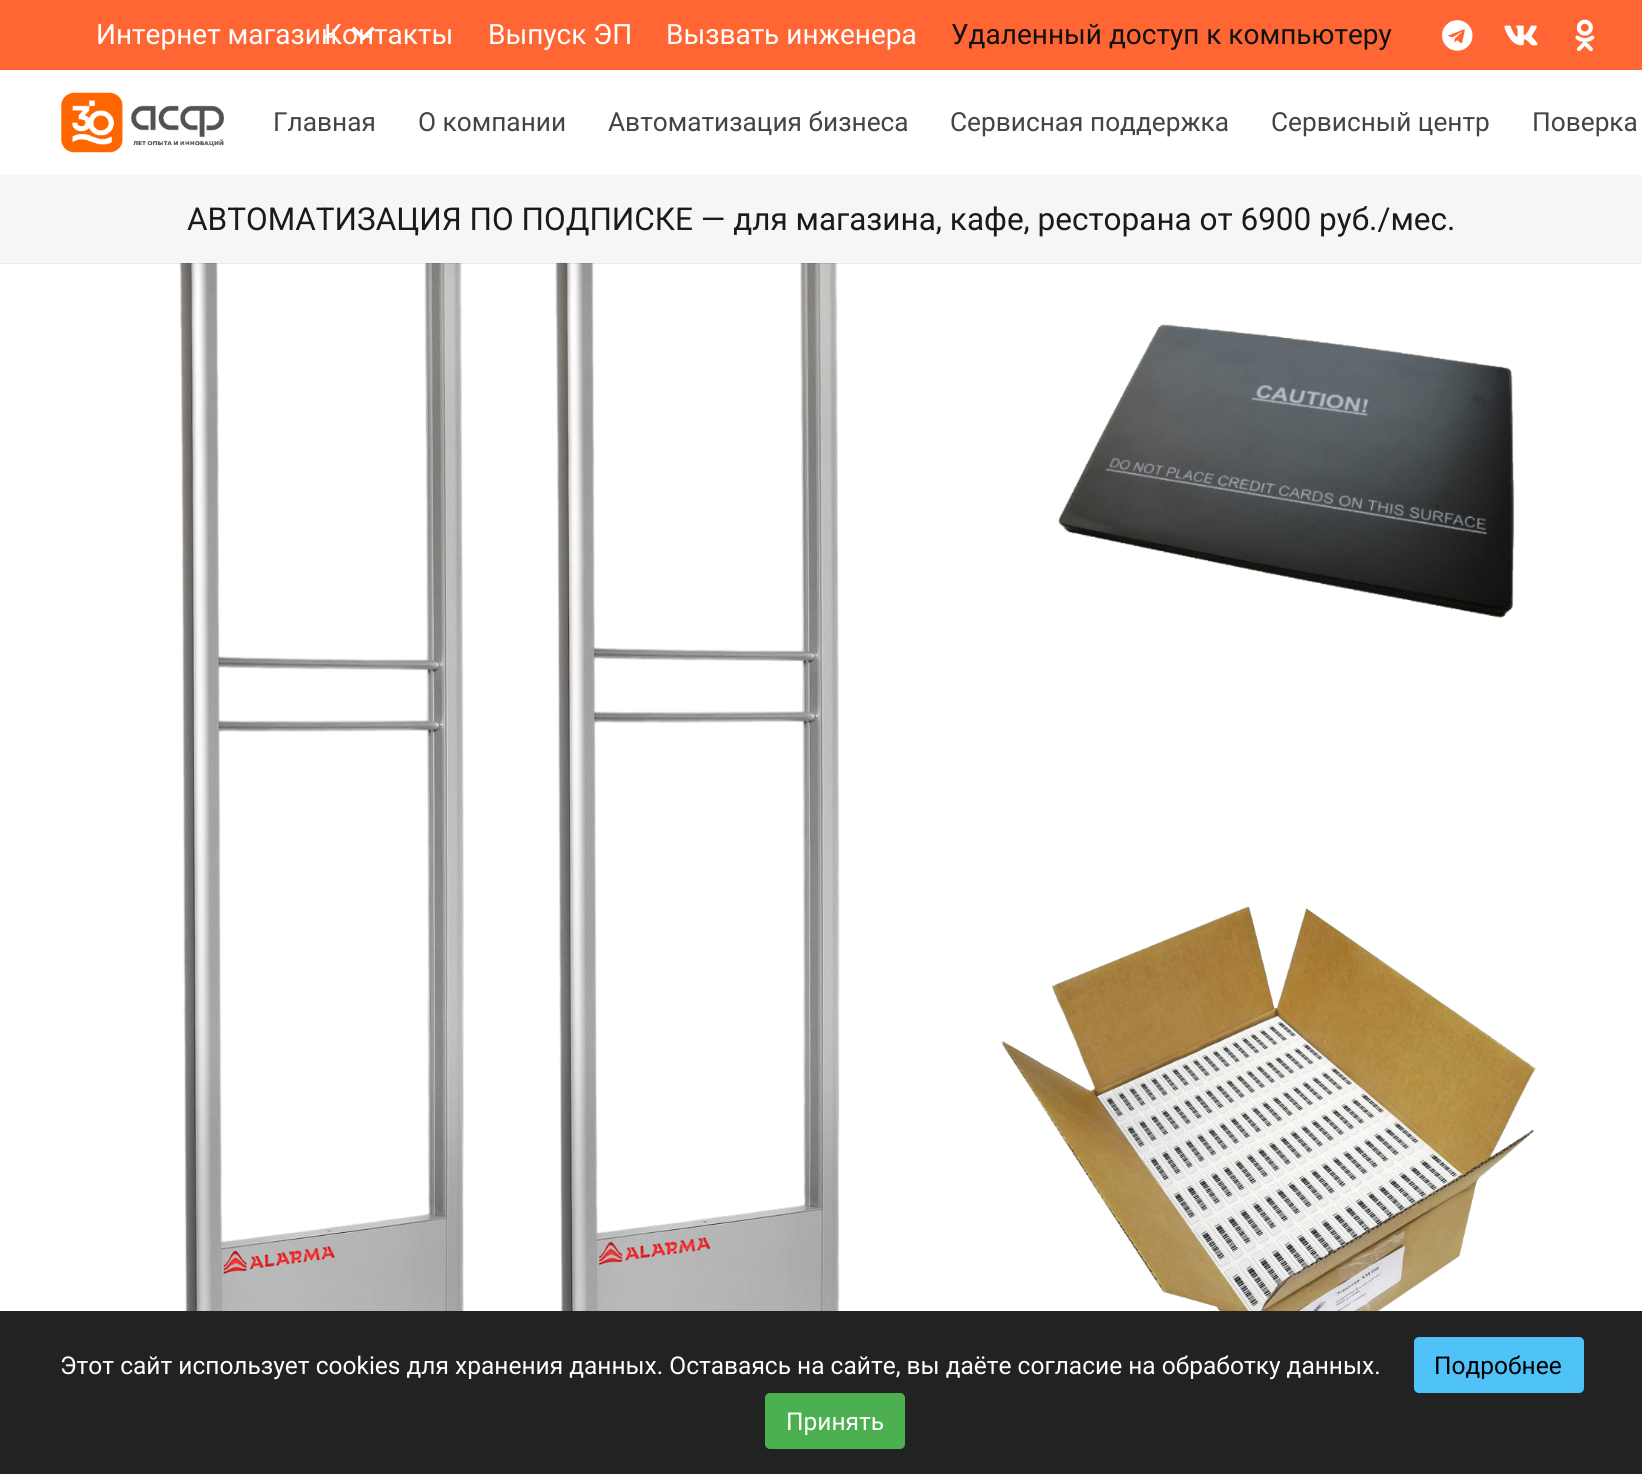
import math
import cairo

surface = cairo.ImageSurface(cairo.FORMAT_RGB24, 1642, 1474)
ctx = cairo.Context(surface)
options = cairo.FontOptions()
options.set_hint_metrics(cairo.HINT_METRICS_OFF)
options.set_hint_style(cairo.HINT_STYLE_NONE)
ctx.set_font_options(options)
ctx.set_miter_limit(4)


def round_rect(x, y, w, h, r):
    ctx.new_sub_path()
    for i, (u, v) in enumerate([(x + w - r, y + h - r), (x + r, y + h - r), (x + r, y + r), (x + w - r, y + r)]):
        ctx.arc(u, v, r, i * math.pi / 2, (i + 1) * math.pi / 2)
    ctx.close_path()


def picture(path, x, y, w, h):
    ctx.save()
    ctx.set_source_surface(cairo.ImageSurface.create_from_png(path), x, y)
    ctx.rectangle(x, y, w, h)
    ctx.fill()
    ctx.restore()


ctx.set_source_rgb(1, 1, 1)
ctx.paint()
ctx.set_source_rgb(1, 0.4, 0.2)
ctx.rectangle(0, 0, 1642, 70)
ctx.fill()
ctx.select_font_face("Roboto")
ctx.set_font_size(28)
ctx.set_source_rgb(1, 1, 1)
ctx.move_to(324, 44)
ctx.show_text("Контакты")
ctx.move_to(96, 44)
ctx.show_text("Интернет магазин")
picture("img1.png", 351, 26, 24, 15)
ctx.move_to(488, 44)
ctx.show_text("Выпуск ЭП")
ctx.move_to(666, 44)
ctx.show_text("Вызвать инженера")
ctx.set_source_rgb(0.071, 0.067, 0.071)
ctx.move_to(951, 44)
ctx.show_text("Удаленный доступ к компьютеру")
picture("img2.png", 1442, 20, 31, 31)
picture("img3.png", 1504, 25, 34, 21)
picture("img4.png", 1575, 19, 20, 33)
picture("img5.png", 61, 92, 163, 61)
ctx.set_font_size(26.25)
ctx.set_source_rgb(0.267, 0.267, 0.267)
ctx.move_to(273, 131)
ctx.show_text("Главная")
ctx.move_to(418, 131)
ctx.show_text("О компании")
ctx.move_to(608, 131)
ctx.show_text("Автоматизация бизнеса")
ctx.move_to(950, 131)
ctx.show_text("Сервисная поддержка")
ctx.move_to(1271, 131)
ctx.show_text("Сервисный центр")
ctx.move_to(1532, 131)
ctx.show_text("Поверка")
picture("img6.png", 179, 263, 1357, 1048)
ctx.set_source_rgba(0, 0, 0, 0.08)
ctx.rectangle(0, 263, 1642, 1)
ctx.fill()
ctx.set_source_rgb(0.961, 0.961, 0.961)
ctx.rectangle(0, 175, 1642, 88)
ctx.fill()
ctx.set_font_size(31.5)
ctx.set_source_rgb(0.102, 0.102, 0.102)
ctx.move_to(187, 230)
ctx.show_text("АВТОМАТИЗАЦИЯ ПО ПОДПИСКЕ — для магазина, кафе, ресторана от 6900 руб./мес.")
ctx.set_source_rgb(0.133, 0.133, 0.133)
ctx.rectangle(0, 1311, 1642, 163)
ctx.fill()
ctx.set_font_size(24.5)
ctx.set_source_rgb(1, 1, 1)
ctx.move_to(60, 1374)
ctx.show_text("Этот сайт использует cookies для хранения данных. Оставаясь на сайте, вы даёте согласие на обработку данных.")
ctx.set_source_rgb(0.31, 0.765, 0.969)
round_rect(1414, 1337, 170, 56, 5)
ctx.fill()
ctx.set_source_rgb(0, 0, 0)
ctx.move_to(1434, 1374)
ctx.show_text("Подробнее")
ctx.set_source_rgb(0.298, 0.686, 0.314)
round_rect(765, 1393, 140, 56, 5)
ctx.fill()
ctx.set_source_rgb(1, 1, 1)
ctx.move_to(786, 1430)
ctx.show_text("Принять")
surface.write_to_png("page.png")
